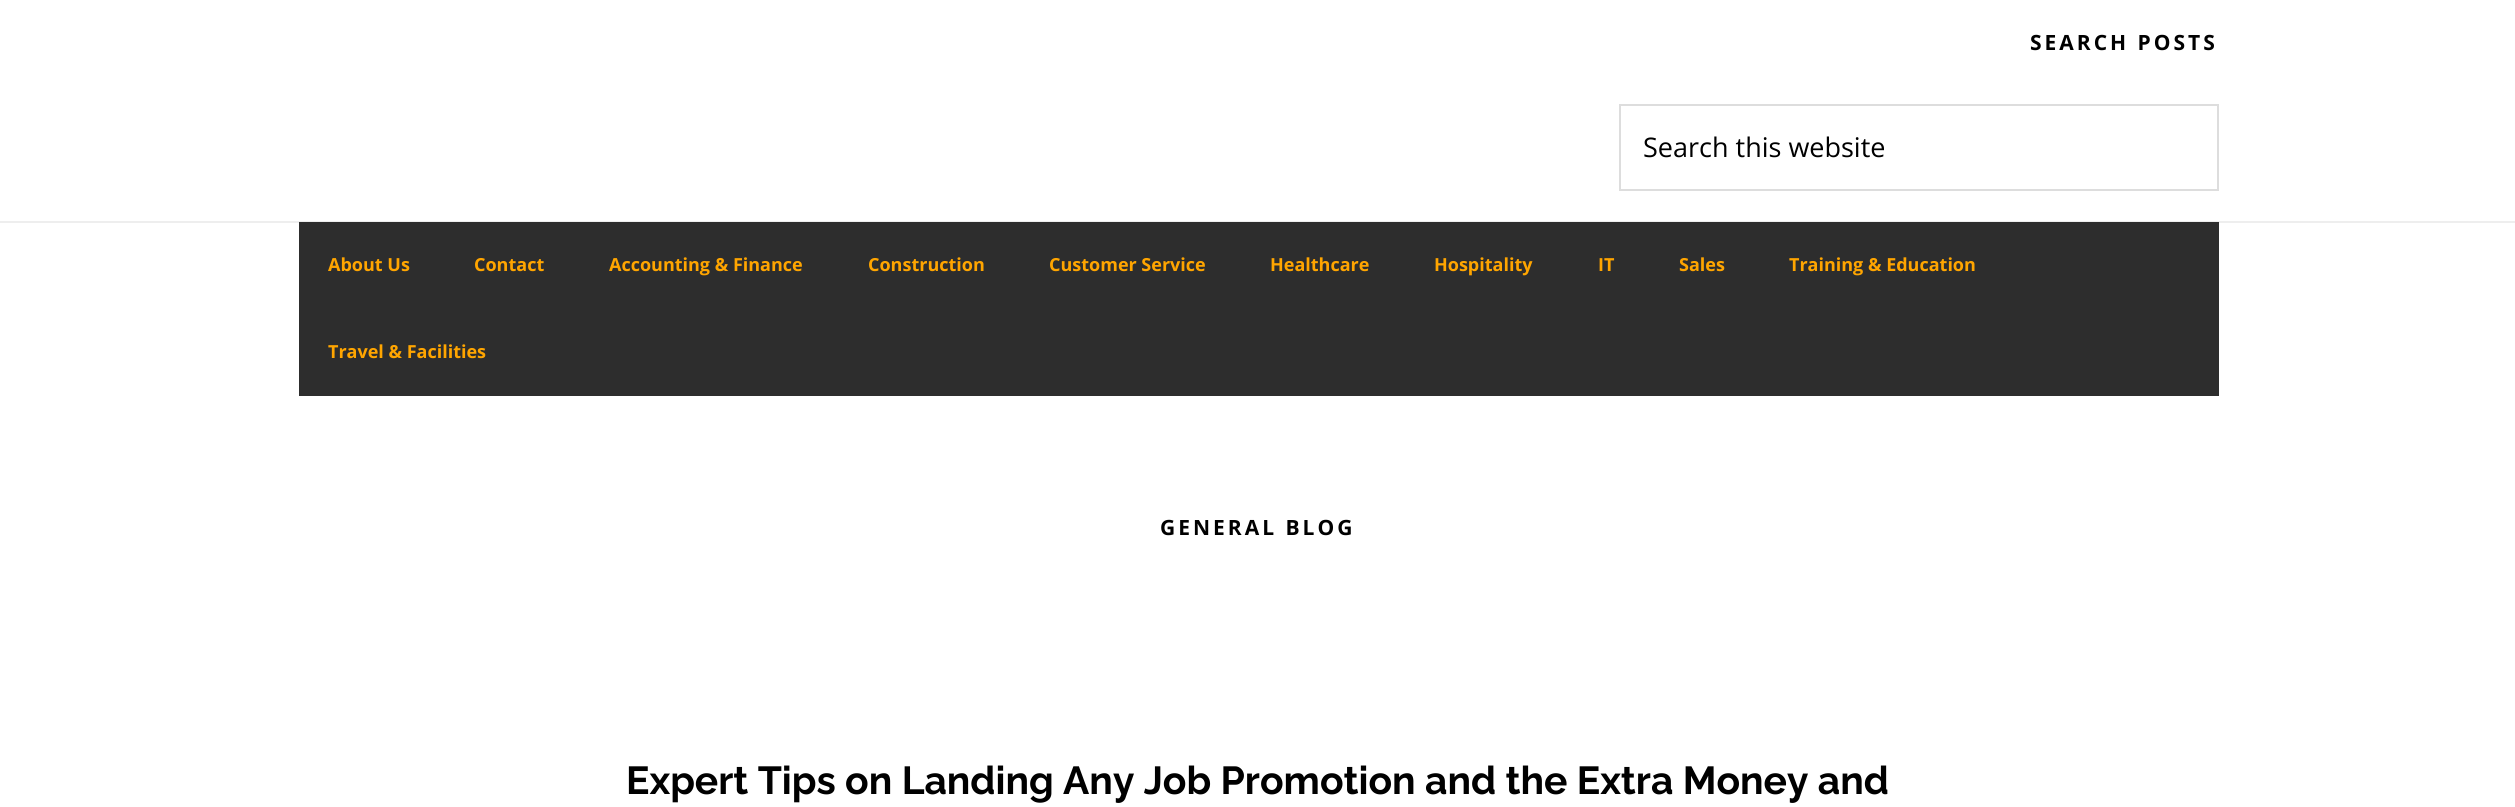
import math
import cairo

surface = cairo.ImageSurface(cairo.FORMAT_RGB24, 2515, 807)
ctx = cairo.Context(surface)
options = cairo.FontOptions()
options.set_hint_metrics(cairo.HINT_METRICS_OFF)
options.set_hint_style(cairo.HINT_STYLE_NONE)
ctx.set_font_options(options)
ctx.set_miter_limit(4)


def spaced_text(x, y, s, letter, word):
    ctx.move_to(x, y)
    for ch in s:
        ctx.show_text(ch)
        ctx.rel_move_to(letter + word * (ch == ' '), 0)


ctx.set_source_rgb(1, 1, 1)
ctx.paint()
ctx.select_font_face("Open Sans", cairo.FONT_SLANT_NORMAL, cairo.FONT_WEIGHT_BOLD)
ctx.set_font_size(21)
ctx.set_source_rgb(0, 0, 0)
spaced_text(2030, 50, "SEARCH POSTS", 3, 0)
ctx.rectangle(1620, 105, 598, 85)
ctx.set_source_rgb(0.867, 0.867, 0.867)
ctx.stroke()
ctx.select_font_face("Open Sans")
ctx.set_font_size(27)
ctx.set_source_rgb(0, 0, 0)
ctx.move_to(1643, 157)
ctx.show_text("Search this website")
ctx.set_source_rgb(0.933, 0.933, 0.933)
ctx.rectangle(0, 221, 2515, 2)
ctx.fill()
ctx.set_source_rgb(0.176, 0.176, 0.176)
ctx.rectangle(299, 222, 1920, 174)
ctx.fill()
ctx.select_font_face("Open Sans", cairo.FONT_SLANT_NORMAL, cairo.FONT_WEIGHT_BOLD)
ctx.set_font_size(18)
ctx.set_source_rgb(1, 0.647, 0)
ctx.move_to(328, 271)
ctx.show_text("About Us")
ctx.move_to(474, 271)
ctx.show_text("Contact")
ctx.move_to(609, 271)
ctx.show_text("Accounting & Finance")
ctx.move_to(868, 271)
ctx.show_text("Construction")
ctx.move_to(1049, 271)
ctx.show_text("Customer Service")
ctx.move_to(1270, 271)
ctx.show_text("Healthcare")
ctx.move_to(1434, 271)
ctx.show_text("Hospitality")
ctx.move_to(1598, 271)
ctx.show_text("IT")
ctx.move_to(1679, 271)
ctx.show_text("Sales")
ctx.move_to(1789, 271)
ctx.show_text("Training & Education")
ctx.move_to(328, 358)
ctx.show_text("Travel & Facilities")
ctx.set_font_size(21)
ctx.set_source_rgb(0, 0, 0)
spaced_text(1160, 535, "GENERAL BLOG", 3, 0)
ctx.select_font_face("Raleway", cairo.FONT_SLANT_NORMAL, cairo.FONT_WEIGHT_BOLD)
ctx.set_font_size(39)
ctx.move_to(626, 794)
ctx.show_text("Expert Tips on Landing Any Job Promotion and the Extra Money and")
surface.write_to_png("page.png")
